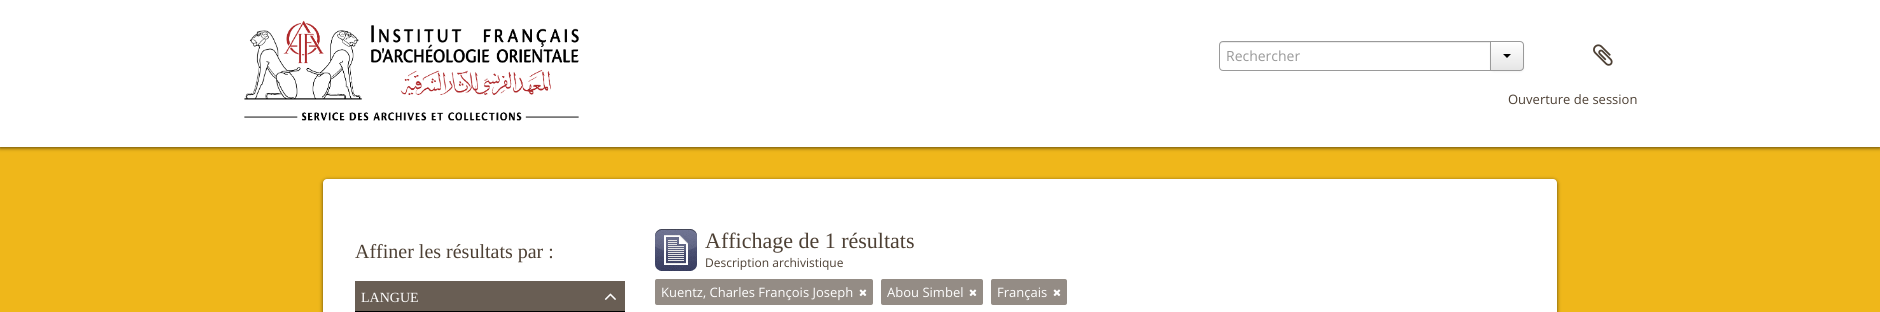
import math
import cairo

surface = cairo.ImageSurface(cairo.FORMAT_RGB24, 1880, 312)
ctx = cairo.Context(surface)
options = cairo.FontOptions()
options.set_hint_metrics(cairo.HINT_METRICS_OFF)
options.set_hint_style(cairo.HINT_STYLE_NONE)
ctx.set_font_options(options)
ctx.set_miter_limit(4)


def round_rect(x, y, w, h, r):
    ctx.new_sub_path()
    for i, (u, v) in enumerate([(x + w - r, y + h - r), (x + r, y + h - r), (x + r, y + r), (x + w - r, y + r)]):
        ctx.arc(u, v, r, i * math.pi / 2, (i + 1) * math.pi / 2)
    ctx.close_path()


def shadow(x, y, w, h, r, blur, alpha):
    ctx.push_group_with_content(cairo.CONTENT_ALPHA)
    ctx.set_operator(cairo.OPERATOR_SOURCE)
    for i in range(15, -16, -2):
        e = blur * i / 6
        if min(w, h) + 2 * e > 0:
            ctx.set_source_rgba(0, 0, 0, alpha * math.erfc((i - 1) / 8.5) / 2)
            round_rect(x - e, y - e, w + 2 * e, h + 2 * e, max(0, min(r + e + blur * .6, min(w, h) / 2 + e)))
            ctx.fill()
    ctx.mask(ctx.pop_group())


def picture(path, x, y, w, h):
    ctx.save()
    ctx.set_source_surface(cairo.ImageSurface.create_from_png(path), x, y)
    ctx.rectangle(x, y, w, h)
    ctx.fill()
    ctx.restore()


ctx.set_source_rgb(0.937, 0.718, 0.102)
ctx.paint()
ctx.set_source_rgb(0, 0, 0)
shadow(0, 1, 1880, 147, 0, 2, 0.62)
ctx.set_source_rgb(1, 1, 1)
ctx.rectangle(0, 0, 1880, 147)
ctx.fill()
picture("img1.png", 244, 20, 335, 101)
ctx.set_source_rgb(0.925, 0.925, 0.925)
ctx.new_path()
ctx.move_to(1223, 43)
ctx.line_to(1490, 43)
ctx.line_to(1490, 42)
ctx.line_to(1223, 42)
ctx.curve_to(1221, 42, 1220, 43, 1220, 45)
ctx.line_to(1220, 46)
ctx.curve_to(1220, 44, 1221, 43, 1223, 43)
ctx.close_path()
ctx.fill()
ctx.new_path()
ctx.move_to(1223, 41.5)
ctx.line_to(1490.5, 41.5)
ctx.line_to(1490.5, 70.5)
ctx.line_to(1223, 70.5)
ctx.curve_to(1221, 70.5, 1219.5, 69, 1219.5, 67)
ctx.line_to(1219.5, 45)
ctx.curve_to(1219.5, 43, 1221, 41.5, 1223, 41.5)
ctx.close_path()
ctx.set_source_rgb(0.604, 0.604, 0.604)
ctx.set_line_width(1)
ctx.stroke()
ctx.select_font_face("Open Sans")
ctx.set_font_size(14)
ctx.set_source_rgb(0.6, 0.6, 0.6)
ctx.move_to(1226, 61)
ctx.show_text("Rechercher")
ctx.set_source_rgb(0, 0, 0)
shadow(1490, 42, 34, 30, 4, 1, 0.05)
ctx.save()
ctx.new_path()
ctx.move_to(1490, 41)
ctx.line_to(1520, 41)
ctx.curve_to(1522, 41, 1524, 43, 1524, 45)
ctx.line_to(1524, 67)
ctx.curve_to(1524, 69, 1522, 71, 1520, 71)
ctx.line_to(1490, 71)
ctx.close_path()
ctx.clip()
gradient = cairo.LinearGradient(1507, 42, 1507, 70)
gradient.add_color_stop_rgba(0, 1, 1, 1, 1)
gradient.add_color_stop_rgba(1, 0.902, 0.902, 0.902, 1)
ctx.set_source(gradient)
ctx.rectangle(1491, 42, 33, 28)
ctx.fill()
ctx.restore()
ctx.new_path()
ctx.move_to(1490.5, 41.5)
ctx.line_to(1520, 41.5)
ctx.curve_to(1522, 41.5, 1523.5, 43, 1523.5, 45)
ctx.line_to(1523.5, 67)
ctx.curve_to(1523.5, 69, 1522, 70.5, 1520, 70.5)
ctx.line_to(1490.5, 70.5)
ctx.close_path()
ctx.set_source_rgb(0.604, 0.604, 0.604)
ctx.stroke()
ctx.set_source_rgb(0, 0, 0)
ctx.new_path()
ctx.move_to(1503, 54)
ctx.line_to(1511, 54)
ctx.line_to(1507, 58)
ctx.close_path()
ctx.fill()
picture("img2.png", 1593, 44, 20, 22)
ctx.set_font_size(13)
ctx.set_source_rgb(0.302, 0.251, 0.204)
ctx.move_to(1508, 104)
ctx.show_text("Ouverture de session")
ctx.set_source_rgb(0, 0, 0)
shadow(323, 180, 1234, 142, 4, 2, 0.62)
ctx.set_source_rgb(1, 1, 1)
round_rect(323, 179, 1234, 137, 4)
ctx.fill()
ctx.select_font_face("Liberation Serif")
ctx.set_font_size(20)
ctx.set_source_rgb(0.302, 0.251, 0.204)
ctx.move_to(355, 258)
ctx.show_text("Affiner les résultats par :")
ctx.set_source_rgb(0, 0, 0)
ctx.rectangle(355, 311, 270, 1)
ctx.fill()
ctx.set_source_rgb(0.412, 0.369, 0.329)
ctx.rectangle(355, 281, 270, 30)
ctx.fill()
ctx.set_font_size(14)
ctx.set_source_rgb(1, 1, 1)
ctx.move_to(361, 302)
ctx.show_text("LANGUE")
picture("img3.png", 604, 293, 12, 7)
picture("img4.png", 655, 229, 42, 42)
ctx.set_font_size(22)
ctx.set_source_rgb(0.302, 0.251, 0.204)
ctx.move_to(705, 248)
ctx.show_text("Affichage de 1 résultats")
ctx.select_font_face("Open Sans")
ctx.set_font_size(12)
ctx.move_to(705, 267)
ctx.show_text("Description archivistique")
ctx.set_source_rgb(0.58, 0.549, 0.522)
round_rect(655, 279, 218, 26, 2)
ctx.fill()
ctx.set_font_size(13)
ctx.set_source_rgb(1, 1, 1)
ctx.move_to(661, 297)
ctx.show_text("Kuentz, Charles François Joseph")
picture("img5.png", 859, 289, 8, 7)
ctx.set_source_rgb(0.58, 0.549, 0.522)
round_rect(881, 279, 102, 26, 2)
ctx.fill()
ctx.set_source_rgb(1, 1, 1)
ctx.move_to(887, 297)
ctx.show_text("Abou Simbel")
picture("img5.png", 969, 289, 8, 7)
ctx.set_source_rgb(0.58, 0.549, 0.522)
round_rect(991, 279, 76, 26, 2)
ctx.fill()
ctx.set_source_rgb(1, 1, 1)
ctx.move_to(997, 297)
ctx.show_text("Français")
picture("img5.png", 1053, 289, 8, 7)
surface.write_to_png("page.png")
